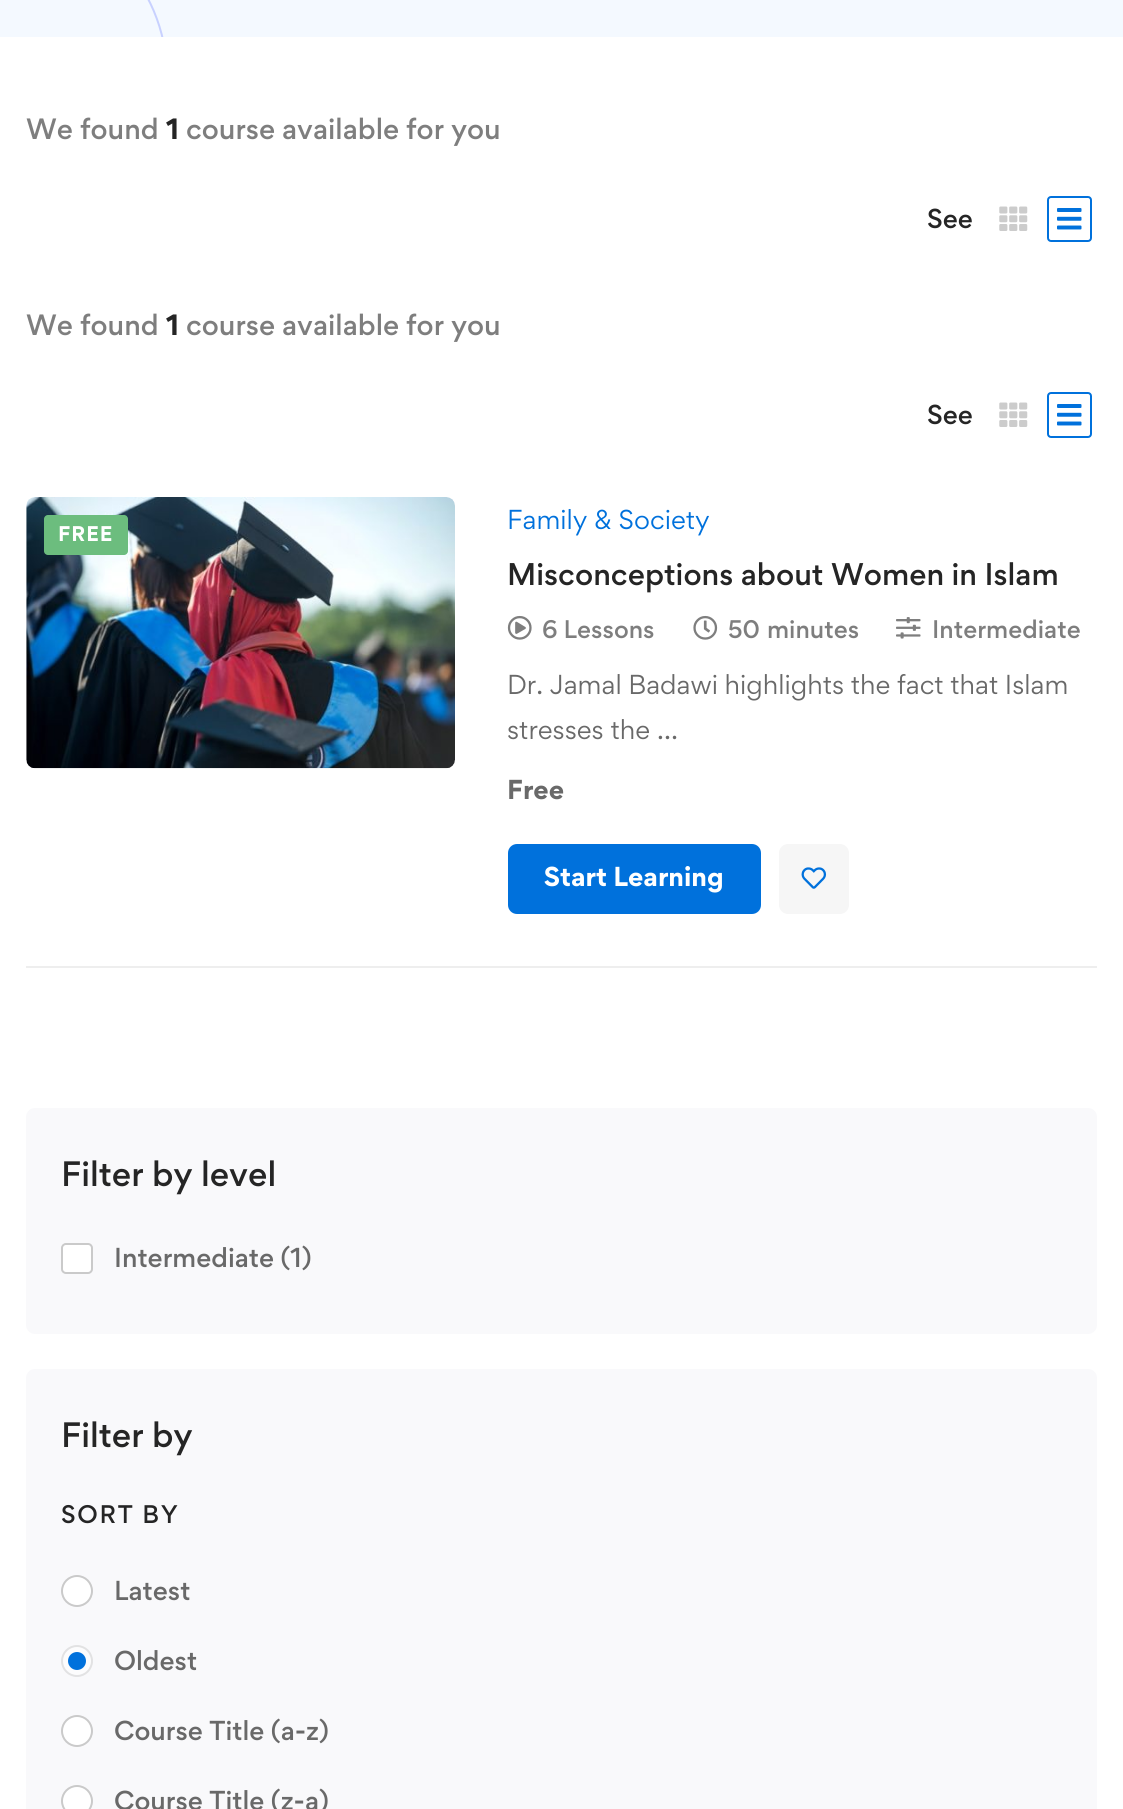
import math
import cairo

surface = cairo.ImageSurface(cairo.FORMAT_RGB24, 1123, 1809)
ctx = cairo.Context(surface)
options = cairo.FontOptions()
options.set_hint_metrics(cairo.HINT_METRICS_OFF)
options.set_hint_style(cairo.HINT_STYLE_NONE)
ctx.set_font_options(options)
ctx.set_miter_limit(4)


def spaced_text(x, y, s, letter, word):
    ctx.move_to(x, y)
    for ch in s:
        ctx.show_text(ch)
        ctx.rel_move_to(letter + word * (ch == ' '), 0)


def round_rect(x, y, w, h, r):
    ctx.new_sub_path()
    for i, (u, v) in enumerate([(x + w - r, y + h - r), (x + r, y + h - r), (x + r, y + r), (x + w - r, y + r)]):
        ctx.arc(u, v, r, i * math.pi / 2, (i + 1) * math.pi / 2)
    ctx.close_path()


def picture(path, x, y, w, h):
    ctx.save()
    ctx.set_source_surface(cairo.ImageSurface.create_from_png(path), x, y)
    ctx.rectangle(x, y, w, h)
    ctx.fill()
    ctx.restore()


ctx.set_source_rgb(1, 1, 1)
ctx.paint()
ctx.set_source_rgb(0.957, 0.976, 1)
ctx.rectangle(0, 0, 1123, 37)
ctx.fill()
ctx.select_font_face("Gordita", cairo.FONT_SLANT_NORMAL, cairo.FONT_WEIGHT_BOLD)
ctx.set_font_size(26.25)
ctx.set_source_rgb(0.145, 0.145, 0.145)
ctx.move_to(166, 139)
ctx.show_text("1")
ctx.save()
ctx.rectangle(0, 0, 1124, 37)
ctx.clip()
round_rect(-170, -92, 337, 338, 168.5)
ctx.set_source_rgb(0.784, 0.82, 1)
ctx.stroke()
ctx.restore()
ctx.select_font_face("Gordita Medium")
ctx.set_source_rgb(0.494, 0.494, 0.494)
ctx.move_to(26, 139)
ctx.show_text("We found")
ctx.move_to(186, 139)
ctx.show_text("course available for you")
ctx.set_font_size(24.5)
ctx.set_source_rgb(0.145, 0.145, 0.145)
ctx.move_to(927, 228)
ctx.show_text("See")
picture("img1.png", 999, 206, 29, 25)
round_rect(1048, 197, 43, 44, 3)
ctx.set_source_rgb(0, 0.443, 0.863)
ctx.stroke()
picture("img2.png", 1057, 208, 25, 22)
ctx.set_font_size(26.25)
ctx.set_source_rgb(0.494, 0.494, 0.494)
ctx.move_to(26, 335)
ctx.show_text("We found")
ctx.select_font_face("Gordita", cairo.FONT_SLANT_NORMAL, cairo.FONT_WEIGHT_BOLD)
ctx.set_source_rgb(0.145, 0.145, 0.145)
ctx.move_to(166, 335)
ctx.show_text("1")
ctx.select_font_face("Gordita Medium")
ctx.set_source_rgb(0.494, 0.494, 0.494)
ctx.move_to(186, 335)
ctx.show_text("course available for you")
ctx.set_font_size(24.5)
ctx.set_source_rgb(0.145, 0.145, 0.145)
ctx.move_to(927, 424)
ctx.show_text("See")
picture("img1.png", 999, 402, 29, 25)
round_rect(1048, 393, 43, 44, 3)
ctx.set_source_rgb(0, 0.443, 0.863)
ctx.stroke()
picture("img2.png", 1057, 404, 25, 22)
ctx.set_source_rgb(0.933, 0.933, 0.933)
ctx.rectangle(26, 966, 1071, 2)
ctx.fill()
picture("img3.png", 26, 497, 429, 272)
ctx.set_source_rgb(0.424, 0.741, 0.494)
round_rect(44, 515, 84, 40, 4)
ctx.fill()
ctx.select_font_face("Gordita", cairo.FONT_SLANT_NORMAL, cairo.FONT_WEIGHT_BOLD)
ctx.set_font_size(19)
ctx.set_source_rgb(1, 1, 1)
spaced_text(58, 541, "FREE", 1, 0)
ctx.select_font_face("Gordita")
ctx.set_font_size(24.5)
ctx.set_source_rgb(0, 0.443, 0.863)
ctx.move_to(507, 529)
ctx.show_text("Family & Society")
ctx.select_font_face("Gordita Medium")
ctx.set_font_size(28)
ctx.set_source_rgb(0.145, 0.145, 0.145)
ctx.move_to(507, 585)
ctx.show_text("Misconceptions about Women in Islam")
picture("img4.png", 507, 615, 25, 25)
ctx.set_font_size(22.75)
ctx.set_source_rgb(0.494, 0.494, 0.494)
ctx.move_to(542, 638)
ctx.show_text("6 Lessons")
picture("img5.png", 693, 615, 25, 25)
spaced_text(728, 638, "50 minutes", 0, 1)
picture("img6.png", 896, 617, 25, 22)
ctx.move_to(932, 638)
ctx.show_text("Intermediate")
ctx.select_font_face("Gordita")
ctx.set_font_size(24.5)
ctx.set_source_rgb(0.412, 0.412, 0.412)
spaced_text(507, 694, "Dr. Jamal Badawi highlights the fact that Islam", 0, -0.25)
ctx.move_to(507, 739)
ctx.show_text("stresses the …")
ctx.select_font_face("Gordita", cairo.FONT_SLANT_NORMAL, cairo.FONT_WEIGHT_BOLD)
ctx.move_to(507, 799)
ctx.show_text("Free")
ctx.set_source_rgb(0, 0.443, 0.863)
round_rect(508, 844, 253, 70, 9)
ctx.fill()
ctx.set_source_rgb(1, 1, 1)
ctx.move_to(544, 886)
ctx.show_text("Start Learning")
ctx.set_source_rgb(0.961, 0.961, 0.961)
round_rect(779, 844, 70, 70, 9)
ctx.fill()
picture("img7.png", 801, 867, 26, 22)
ctx.set_source_rgb(0.976, 0.976, 0.984)
round_rect(26, 1108, 1071, 226, 9)
ctx.fill()
ctx.select_font_face("Gordita Medium")
ctx.set_font_size(31.5)
ctx.set_source_rgb(0.145, 0.145, 0.145)
ctx.move_to(61, 1186)
ctx.show_text("Filter by level")
ctx.set_source_rgb(1, 1, 1)
round_rect(62, 1244, 30, 29, 4)
ctx.fill_preserve()
ctx.set_source_rgb(0.792, 0.792, 0.792)
ctx.stroke()
ctx.set_font_size(24.5)
ctx.set_source_rgb(0.412, 0.412, 0.412)
ctx.move_to(114, 1267)
ctx.show_text("Intermediate (1)")
ctx.set_source_rgb(0.976, 0.976, 0.984)
round_rect(26, 1369, 1071, 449, 9)
ctx.fill()
ctx.set_font_size(31.5)
ctx.set_source_rgb(0.145, 0.145, 0.145)
ctx.move_to(61, 1447)
ctx.show_text("Filter by")
ctx.set_font_size(22.75)
spaced_text(61, 1523, "SORT BY", 1.75, 0)
ctx.set_source_rgb(1, 1, 1)
ctx.new_path()
ctx.arc(77, 1591, 15, 0, 2 * math.pi)
ctx.fill_preserve()
ctx.set_source_rgb(0.792, 0.792, 0.792)
ctx.stroke()
ctx.set_font_size(24.5)
ctx.set_source_rgb(0.412, 0.412, 0.412)
ctx.move_to(114, 1600)
ctx.show_text("Latest")
ctx.set_source_rgb(0.988, 0.988, 0.992)
ctx.new_path()
ctx.arc(77, 1661, 15, 0, 2 * math.pi)
ctx.fill_preserve()
ctx.set_source_rgb(0.886, 0.886, 0.89)
ctx.stroke()
ctx.set_source_rgb(0.412, 0.412, 0.412)
ctx.move_to(114, 1670)
ctx.show_text("Oldest")
ctx.set_source_rgb(0, 0.443, 0.863)
ctx.new_path()
ctx.arc(77, 1661, 9, 0, 2 * math.pi)
ctx.fill()
ctx.set_source_rgb(1, 1, 1)
ctx.arc(77, 1731, 15, 0, 2 * math.pi)
ctx.fill_preserve()
ctx.set_source_rgb(0.792, 0.792, 0.792)
ctx.stroke()
ctx.set_source_rgb(0.412, 0.412, 0.412)
ctx.move_to(114, 1740)
ctx.show_text("Course Title (a-z)")
ctx.set_source_rgb(1, 1, 1)
ctx.new_path()
ctx.arc(77, 1801, 15, 0, 2 * math.pi)
ctx.fill_preserve()
ctx.set_source_rgb(0.792, 0.792, 0.792)
ctx.stroke()
ctx.set_source_rgb(0.412, 0.412, 0.412)
ctx.move_to(114, 1810)
ctx.show_text("Course Title (z-a)")
surface.write_to_png("page.png")
